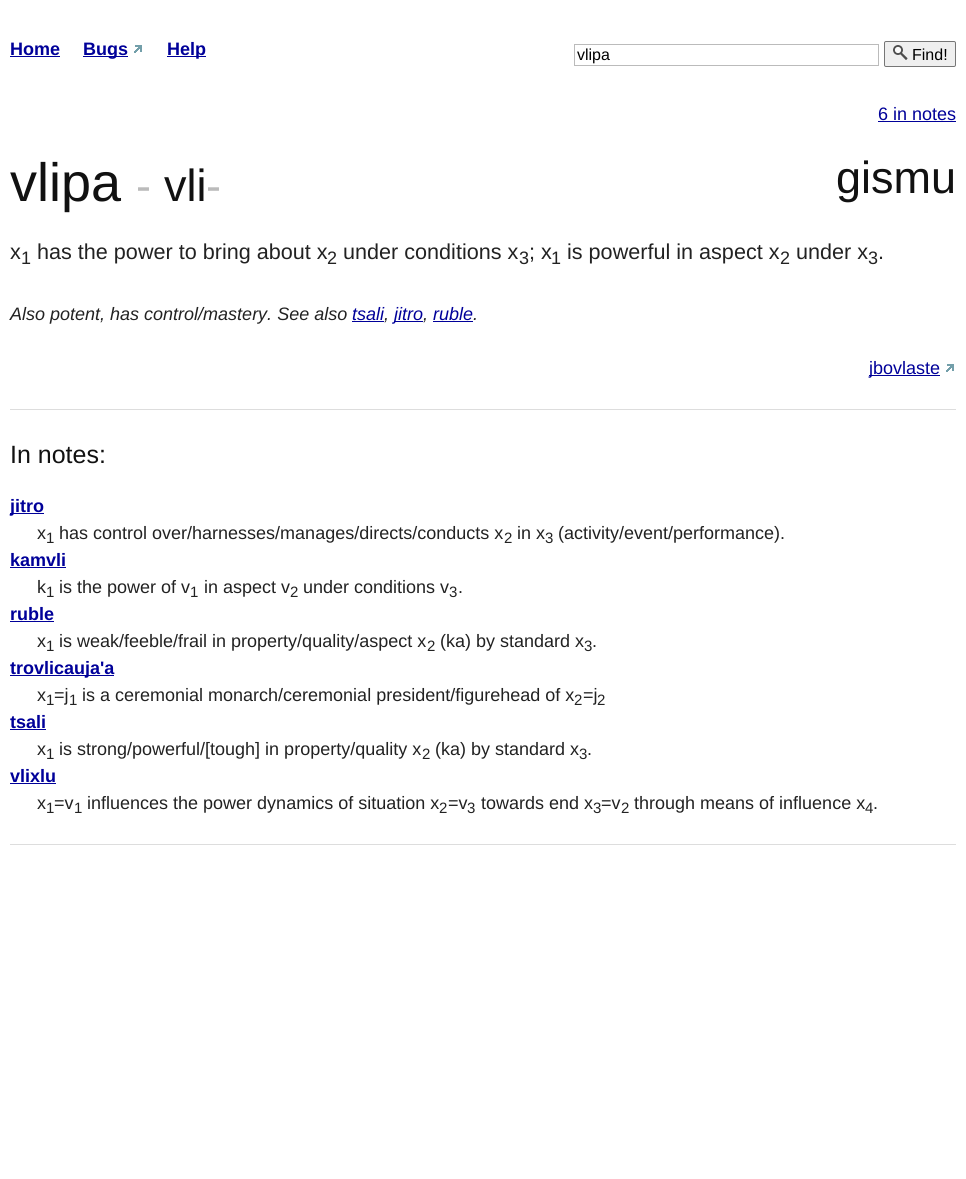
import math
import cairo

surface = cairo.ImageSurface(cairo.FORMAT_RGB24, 966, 1179)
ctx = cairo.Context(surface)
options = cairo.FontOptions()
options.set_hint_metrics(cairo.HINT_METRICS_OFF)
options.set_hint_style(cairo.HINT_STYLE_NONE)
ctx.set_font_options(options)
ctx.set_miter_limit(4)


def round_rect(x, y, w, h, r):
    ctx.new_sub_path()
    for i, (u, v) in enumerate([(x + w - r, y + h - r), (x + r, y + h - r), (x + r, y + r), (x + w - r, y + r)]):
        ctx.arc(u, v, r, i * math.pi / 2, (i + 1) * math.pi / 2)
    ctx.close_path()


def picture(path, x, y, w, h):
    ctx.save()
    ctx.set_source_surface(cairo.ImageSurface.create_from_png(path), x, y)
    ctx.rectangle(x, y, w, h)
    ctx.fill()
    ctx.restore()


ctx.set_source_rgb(1, 1, 1)
ctx.paint()
ctx.select_font_face("Liberation Sans", cairo.FONT_SLANT_NORMAL, cairo.FONT_WEIGHT_BOLD)
ctx.set_font_size(18)
ctx.set_source_rgb(0, 0, 0.6)
ctx.move_to(10, 55)
ctx.show_text("Home")
ctx.rectangle(10, 56, 50, 1)
ctx.fill()
ctx.rectangle(83, 56, 45, 1)
ctx.fill()
ctx.move_to(83, 55)
ctx.show_text("Bugs")
picture("img1.png", 134, 45, 8, 8)
ctx.rectangle(167, 56, 39, 1)
ctx.fill()
ctx.move_to(167, 55)
ctx.show_text("Help")
ctx.rectangle(574.5, 44.5, 304, 21)
ctx.set_source_rgb(0.733, 0.733, 0.733)
ctx.set_line_width(1)
ctx.stroke()
ctx.select_font_face("Liberation Sans")
ctx.set_font_size(16)
ctx.set_source_rgb(0, 0, 0)
ctx.move_to(577, 60)
ctx.show_text("vlipa")
ctx.set_source_rgb(0.937, 0.937, 0.937)
round_rect(884.5, 41.5, 71, 25, 1.5)
ctx.fill_preserve()
ctx.set_source_rgb(0.463, 0.463, 0.463)
ctx.stroke()
picture("img2.png", 893, 45, 15, 15)
ctx.set_source_rgb(0, 0, 0)
ctx.move_to(912, 60)
ctx.show_text("Find!")
ctx.set_font_size(18)
ctx.set_source_rgb(0, 0, 0.6)
ctx.move_to(878, 120)
ctx.show_text("6 in notes")
ctx.rectangle(878, 121, 78, 1)
ctx.fill()
ctx.set_font_size(54)
ctx.set_source_rgb(0.067, 0.067, 0.067)
ctx.move_to(10, 201)
ctx.show_text("vlipa")
ctx.set_font_size(45)
ctx.set_source_rgb(0.733, 0.733, 0.733)
ctx.move_to(136, 201)
ctx.show_text("-")
ctx.set_source_rgb(0.067, 0.067, 0.067)
ctx.move_to(164, 201)
ctx.show_text("vli")
ctx.set_source_rgb(0.733, 0.733, 0.733)
ctx.move_to(206, 201)
ctx.show_text("-")
ctx.set_source_rgb(0.067, 0.067, 0.067)
ctx.move_to(836, 193)
ctx.show_text("gismu")
ctx.set_font_size(21.6)
ctx.set_source_rgb(0.133, 0.133, 0.133)
ctx.move_to(10, 259)
ctx.show_text("x")
ctx.set_font_size(18)
ctx.move_to(21, 264)
ctx.show_text("1")
ctx.set_font_size(21.6)
ctx.move_to(37, 259)
ctx.show_text("has the power to bring about x")
ctx.set_font_size(18)
ctx.move_to(327, 264)
ctx.show_text("2")
ctx.set_font_size(21.6)
ctx.move_to(343, 259)
ctx.show_text("under conditions x")
ctx.set_font_size(18)
ctx.move_to(519, 264)
ctx.show_text("3")
ctx.set_font_size(21.6)
ctx.move_to(529, 259)
ctx.show_text("; x")
ctx.set_font_size(18)
ctx.move_to(551, 264)
ctx.show_text("1")
ctx.set_font_size(21.6)
ctx.move_to(567, 259)
ctx.show_text("is powerful in aspect x")
ctx.set_font_size(18)
ctx.move_to(780, 264)
ctx.show_text("2")
ctx.set_font_size(21.6)
ctx.move_to(796, 259)
ctx.show_text("under x")
ctx.set_font_size(18)
ctx.move_to(868, 264)
ctx.show_text("3")
ctx.set_font_size(21.6)
ctx.move_to(878, 259)
ctx.show_text(".")
ctx.select_font_face("Liberation Sans", cairo.FONT_SLANT_ITALIC)
ctx.set_font_size(18)
ctx.move_to(10, 320)
ctx.show_text("Also potent, has control/mastery. See also")
ctx.set_source_rgb(0, 0, 0.6)
ctx.move_to(352, 320)
ctx.show_text("tsali")
ctx.rectangle(352, 321, 32, 1)
ctx.fill()
ctx.set_source_rgb(0.133, 0.133, 0.133)
ctx.move_to(384, 320)
ctx.show_text(",")
ctx.set_source_rgb(0, 0, 0.6)
ctx.rectangle(394, 321, 29, 1)
ctx.fill()
ctx.move_to(394, 320)
ctx.show_text("jitro")
ctx.set_source_rgb(0.133, 0.133, 0.133)
ctx.move_to(423, 320)
ctx.show_text(",")
ctx.set_source_rgb(0, 0, 0.6)
ctx.move_to(433, 320)
ctx.show_text("ruble")
ctx.rectangle(433, 321, 40, 1)
ctx.fill()
ctx.set_source_rgb(0.133, 0.133, 0.133)
ctx.move_to(473, 320)
ctx.show_text(".")
ctx.set_source_rgb(0, 0, 0.6)
ctx.rectangle(869, 375, 71, 1)
ctx.fill()
ctx.select_font_face("Liberation Sans")
ctx.move_to(869, 374)
ctx.show_text("jbovlaste")
picture("img1.png", 946, 364, 8, 8)
ctx.set_source_rgb(0.867, 0.867, 0.867)
ctx.rectangle(10, 409, 946, 1)
ctx.fill()
ctx.set_font_size(25)
ctx.set_source_rgb(0.067, 0.067, 0.067)
ctx.move_to(10, 463)
ctx.show_text("In notes:")
ctx.set_source_rgb(0, 0, 0.6)
ctx.rectangle(10, 513, 34, 1)
ctx.fill()
ctx.select_font_face("Liberation Sans", cairo.FONT_SLANT_NORMAL, cairo.FONT_WEIGHT_BOLD)
ctx.set_font_size(18)
ctx.move_to(10, 512)
ctx.show_text("jitro")
ctx.select_font_face("Liberation Sans")
ctx.set_source_rgb(0.133, 0.133, 0.133)
ctx.move_to(37, 539)
ctx.show_text("x")
ctx.set_font_size(15)
ctx.move_to(46, 543)
ctx.show_text("1")
ctx.set_font_size(18)
ctx.move_to(59, 539)
ctx.show_text("has control over/harnesses/manages/directs/conducts x")
ctx.set_font_size(15)
ctx.move_to(504, 543)
ctx.show_text("2")
ctx.set_font_size(18)
ctx.move_to(517, 539)
ctx.show_text("in x")
ctx.set_font_size(15)
ctx.move_to(545, 543)
ctx.show_text("3")
ctx.set_font_size(18)
ctx.move_to(558, 539)
ctx.show_text("(activity/event/performance).")
ctx.select_font_face("Liberation Sans", cairo.FONT_SLANT_NORMAL, cairo.FONT_WEIGHT_BOLD)
ctx.set_source_rgb(0, 0, 0.6)
ctx.move_to(10, 566)
ctx.show_text("kamvli")
ctx.rectangle(10, 567, 56, 1)
ctx.fill()
ctx.select_font_face("Liberation Sans")
ctx.set_source_rgb(0.133, 0.133, 0.133)
ctx.move_to(37, 593)
ctx.show_text("k")
ctx.set_font_size(15)
ctx.move_to(46, 597)
ctx.show_text("1")
ctx.set_font_size(18)
ctx.move_to(59, 593)
ctx.show_text("is the power of v")
ctx.set_font_size(15)
ctx.move_to(190, 597)
ctx.show_text("1")
ctx.set_font_size(18)
ctx.move_to(204, 593)
ctx.show_text("in aspect v")
ctx.set_font_size(15)
ctx.move_to(290, 597)
ctx.show_text("2")
ctx.set_font_size(18)
ctx.move_to(303, 593)
ctx.show_text("under conditions v")
ctx.set_font_size(15)
ctx.move_to(449, 597)
ctx.show_text("3")
ctx.set_font_size(18)
ctx.move_to(458, 593)
ctx.show_text(".")
ctx.select_font_face("Liberation Sans", cairo.FONT_SLANT_NORMAL, cairo.FONT_WEIGHT_BOLD)
ctx.set_source_rgb(0, 0, 0.6)
ctx.move_to(10, 620)
ctx.show_text("ruble")
ctx.rectangle(10, 621, 44, 1)
ctx.fill()
ctx.select_font_face("Liberation Sans")
ctx.set_source_rgb(0.133, 0.133, 0.133)
ctx.move_to(37, 647)
ctx.show_text("x")
ctx.set_font_size(15)
ctx.move_to(46, 651)
ctx.show_text("1")
ctx.set_font_size(18)
ctx.move_to(59, 647)
ctx.show_text("is weak/feeble/frail in property/quality/aspect x")
ctx.set_font_size(15)
ctx.move_to(427, 651)
ctx.show_text("2")
ctx.set_font_size(18)
ctx.move_to(440, 647)
ctx.show_text("(ka) by standard x")
ctx.set_font_size(15)
ctx.move_to(584, 651)
ctx.show_text("3")
ctx.set_font_size(18)
ctx.move_to(592, 647)
ctx.show_text(".")
ctx.set_source_rgb(0, 0, 0.6)
ctx.rectangle(10, 675, 104, 1)
ctx.fill()
ctx.select_font_face("Liberation Sans", cairo.FONT_SLANT_NORMAL, cairo.FONT_WEIGHT_BOLD)
ctx.move_to(10, 674)
ctx.show_text("trovlicauja'a")
ctx.select_font_face("Liberation Sans")
ctx.set_source_rgb(0.133, 0.133, 0.133)
ctx.move_to(37, 701)
ctx.show_text("x")
ctx.set_font_size(15)
ctx.move_to(46, 705)
ctx.show_text("1")
ctx.set_font_size(18)
ctx.move_to(54, 701)
ctx.show_text("=j")
ctx.set_font_size(15)
ctx.move_to(69, 705)
ctx.show_text("1")
ctx.set_font_size(18)
ctx.move_to(82, 701)
ctx.show_text("is a ceremonial monarch/ceremonial president/figurehead of x")
ctx.set_font_size(15)
ctx.move_to(574, 705)
ctx.show_text("2")
ctx.set_font_size(18)
ctx.move_to(583, 701)
ctx.show_text("=j")
ctx.set_font_size(15)
ctx.move_to(597, 705)
ctx.show_text("2")
ctx.select_font_face("Liberation Sans", cairo.FONT_SLANT_NORMAL, cairo.FONT_WEIGHT_BOLD)
ctx.set_font_size(18)
ctx.set_source_rgb(0, 0, 0.6)
ctx.move_to(10, 728)
ctx.show_text("tsali")
ctx.rectangle(10, 729, 36, 1)
ctx.fill()
ctx.select_font_face("Liberation Sans")
ctx.set_source_rgb(0.133, 0.133, 0.133)
ctx.move_to(37, 755)
ctx.show_text("x")
ctx.set_font_size(15)
ctx.move_to(46, 759)
ctx.show_text("1")
ctx.set_font_size(18)
ctx.move_to(59, 755)
ctx.show_text("is strong/powerful/[tough] in property/quality x")
ctx.set_font_size(15)
ctx.move_to(422, 759)
ctx.show_text("2")
ctx.set_font_size(18)
ctx.move_to(435, 755)
ctx.show_text("(ka) by standard x")
ctx.set_font_size(15)
ctx.move_to(579, 759)
ctx.show_text("3")
ctx.set_font_size(18)
ctx.move_to(587, 755)
ctx.show_text(".")
ctx.select_font_face("Liberation Sans", cairo.FONT_SLANT_NORMAL, cairo.FONT_WEIGHT_BOLD)
ctx.set_source_rgb(0, 0, 0.6)
ctx.move_to(10, 782)
ctx.show_text("vlixlu")
ctx.rectangle(10, 783, 46, 1)
ctx.fill()
ctx.select_font_face("Liberation Sans")
ctx.set_source_rgb(0.133, 0.133, 0.133)
ctx.move_to(37, 809)
ctx.show_text("x")
ctx.set_font_size(15)
ctx.move_to(46, 813)
ctx.show_text("1")
ctx.set_font_size(18)
ctx.move_to(54, 809)
ctx.show_text("=v")
ctx.set_font_size(15)
ctx.move_to(74, 813)
ctx.show_text("1")
ctx.set_font_size(18)
ctx.move_to(87, 809)
ctx.show_text("influences the power dynamics of situation x")
ctx.set_font_size(15)
ctx.move_to(439, 813)
ctx.show_text("2")
ctx.set_font_size(18)
ctx.move_to(448, 809)
ctx.show_text("=v")
ctx.set_font_size(15)
ctx.move_to(467, 813)
ctx.show_text("3")
ctx.set_font_size(18)
ctx.move_to(481, 809)
ctx.show_text("towards end x")
ctx.set_font_size(15)
ctx.move_to(593, 813)
ctx.show_text("3")
ctx.set_font_size(18)
ctx.move_to(601, 809)
ctx.show_text("=v")
ctx.set_font_size(15)
ctx.move_to(621, 813)
ctx.show_text("2")
ctx.set_font_size(18)
ctx.move_to(634, 809)
ctx.show_text("through means of influence x")
ctx.set_font_size(15)
ctx.move_to(865, 813)
ctx.show_text("4")
ctx.set_font_size(18)
ctx.move_to(873, 809)
ctx.show_text(".")
ctx.set_source_rgb(0.867, 0.867, 0.867)
ctx.rectangle(10, 844, 946, 1)
ctx.fill()
surface.write_to_png("page.png")
